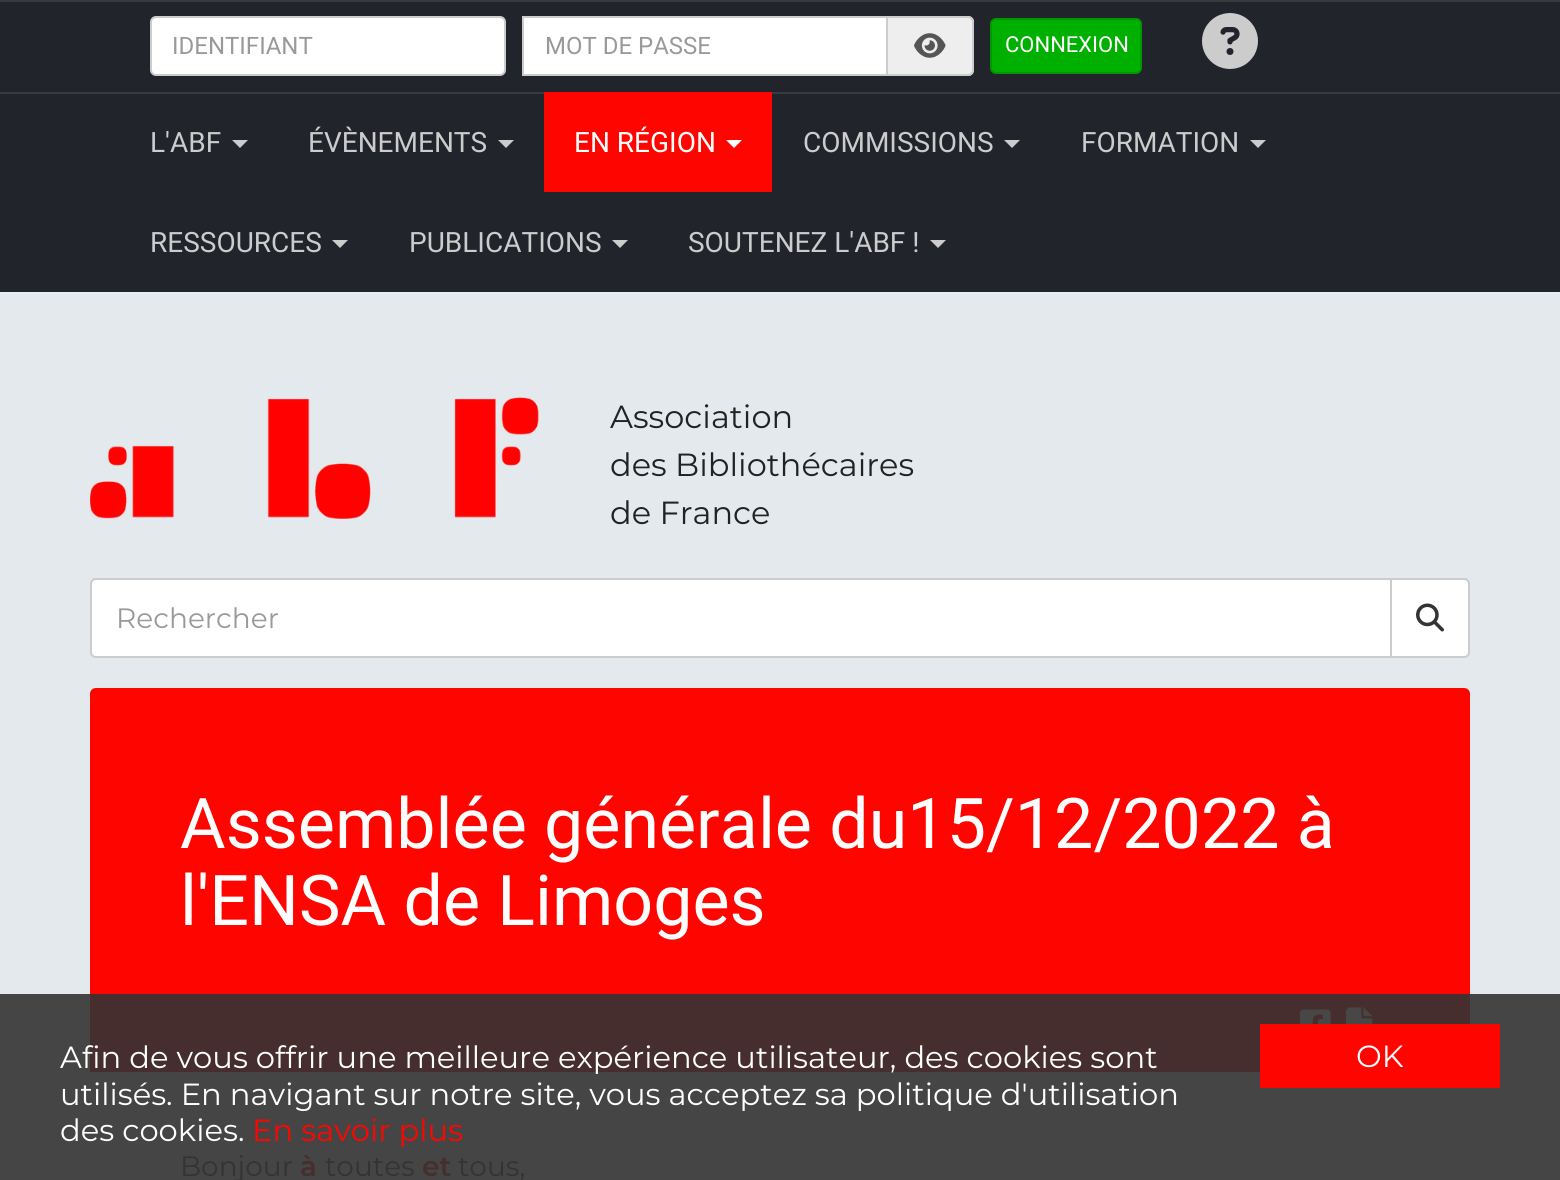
import math
import cairo

surface = cairo.ImageSurface(cairo.FORMAT_RGB24, 1560, 1180)
ctx = cairo.Context(surface)
options = cairo.FontOptions()
options.set_hint_metrics(cairo.HINT_METRICS_OFF)
options.set_hint_style(cairo.HINT_STYLE_NONE)
ctx.set_font_options(options)
ctx.set_miter_limit(4)


def round_rect(x, y, w, h, r):
    ctx.new_sub_path()
    for i, (u, v) in enumerate([(x + w - r, y + h - r), (x + r, y + h - r), (x + r, y + r), (x + w - r, y + r)]):
        ctx.arc(u, v, r, i * math.pi / 2, (i + 1) * math.pi / 2)
    ctx.close_path()


def picture(path, x, y, w, h):
    ctx.save()
    ctx.set_source_surface(cairo.ImageSurface.create_from_png(path), x, y)
    ctx.rectangle(x, y, w, h)
    ctx.fill()
    ctx.restore()


ctx.set_source_rgb(0.89, 0.914, 0.925)
ctx.paint()
ctx.set_source_rgb(0.271, 0.271, 0.275)
ctx.rectangle(0, 994, 1560, 186)
ctx.fill()
ctx.set_source_rgb(0.129, 0.141, 0.165)
ctx.rectangle(0, 2, 1560, 90)
ctx.fill()
ctx.set_source_rgb(0.216, 0.227, 0.247)
ctx.rectangle(0, 0, 1560, 2)
ctx.fill()
ctx.set_source_rgb(1, 1, 1)
round_rect(151, 17, 354, 58, 5)
ctx.fill_preserve()
ctx.set_source_rgb(0.8, 0.8, 0.8)
ctx.stroke()
ctx.select_font_face("Roboto")
ctx.set_font_size(24)
ctx.set_source_rgb(0.6, 0.6, 0.6)
ctx.move_to(172, 54)
ctx.show_text("IDENTIFIANT")
ctx.set_source_rgb(1, 1, 1)
ctx.rectangle(523, 17, 364, 58)
ctx.fill_preserve()
ctx.set_source_rgb(0.8, 0.8, 0.8)
ctx.stroke()
ctx.set_source_rgb(0.6, 0.6, 0.6)
ctx.move_to(545, 54)
ctx.show_text("MOT DE PASSE")
ctx.set_source_rgb(0.933, 0.933, 0.933)
ctx.new_path()
ctx.move_to(888, 16)
ctx.line_to(968, 16)
ctx.curve_to(971.5, 16, 974, 18.5, 974, 22)
ctx.line_to(974, 70)
ctx.curve_to(974, 73.5, 971.5, 76, 968, 76)
ctx.line_to(888, 76)
ctx.close_path()
ctx.fill()
ctx.set_source_rgb(0.8, 0.8, 0.8)
ctx.set_fill_rule(cairo.FILL_RULE_EVEN_ODD)
ctx.new_path()
ctx.move_to(888, 16)
ctx.line_to(968, 16)
ctx.curve_to(971, 16, 974, 19, 974, 22)
ctx.line_to(974, 70)
ctx.curve_to(974, 73, 971, 76, 968, 76)
ctx.line_to(888, 76)
ctx.close_path()
ctx.move_to(888, 18)
ctx.line_to(968, 18)
ctx.curve_to(970, 18, 972, 20, 972, 22)
ctx.line_to(972, 70)
ctx.curve_to(972, 72, 970, 74, 968, 74)
ctx.line_to(888, 74)
ctx.close_path()
ctx.fill()
picture("img1.png", 914, 33, 32, 25)
ctx.set_source_rgb(0, 0.69, 0)
round_rect(991, 19, 150, 54, 5)
ctx.fill_preserve()
ctx.set_source_rgb(0, 0.592, 0)
ctx.stroke()
ctx.set_font_size(22)
ctx.set_source_rgb(1, 1, 1)
ctx.move_to(1005, 52)
ctx.show_text("CONNEXION")
picture("img2.png", 1202, 13, 56, 56)
ctx.set_source_rgb(0.914, 0.929, 0.941)
ctx.rectangle(0, 292, 1560, 2)
ctx.fill()
ctx.set_source_rgb(0.129, 0.141, 0.165)
ctx.rectangle(0, 94, 1560, 198)
ctx.fill()
ctx.set_source_rgb(0.216, 0.227, 0.247)
ctx.rectangle(0, 92, 1560, 2)
ctx.fill()
ctx.set_font_size(28)
ctx.set_source_rgb(0.8, 0.8, 0.8)
ctx.move_to(150, 152)
ctx.show_text("L'ABF")
ctx.set_fill_rule(cairo.FILL_RULE_WINDING)
ctx.new_path()
ctx.move_to(232, 140)
ctx.line_to(248, 140)
ctx.line_to(240, 148)
ctx.close_path()
ctx.fill()
ctx.move_to(308, 152)
ctx.show_text("ÉVÈNEMENTS")
ctx.new_path()
ctx.move_to(498, 140)
ctx.line_to(514, 140)
ctx.line_to(506, 148)
ctx.close_path()
ctx.fill()
ctx.set_source_rgb(1, 0.02, 0)
ctx.rectangle(544, 92, 228, 100)
ctx.fill()
ctx.set_source_rgb(1, 1, 1)
ctx.move_to(574, 152)
ctx.show_text("EN RÉGION")
ctx.new_path()
ctx.move_to(726, 140)
ctx.line_to(742, 140)
ctx.line_to(734, 148)
ctx.close_path()
ctx.fill()
ctx.set_source_rgb(0.8, 0.8, 0.8)
ctx.move_to(803, 152)
ctx.show_text("COMMISSIONS")
ctx.new_path()
ctx.move_to(1004, 140)
ctx.line_to(1020, 140)
ctx.line_to(1012, 148)
ctx.close_path()
ctx.fill()
ctx.move_to(1081, 152)
ctx.show_text("FORMATION")
ctx.new_path()
ctx.move_to(1250, 140)
ctx.line_to(1266, 140)
ctx.line_to(1258, 148)
ctx.close_path()
ctx.fill()
ctx.move_to(150, 252)
ctx.show_text("RESSOURCES")
ctx.new_path()
ctx.move_to(332, 240)
ctx.line_to(348, 240)
ctx.line_to(340, 248)
ctx.close_path()
ctx.fill()
ctx.move_to(409, 252)
ctx.show_text("PUBLICATIONS")
ctx.new_path()
ctx.move_to(612, 240)
ctx.line_to(628, 240)
ctx.line_to(620, 248)
ctx.close_path()
ctx.fill()
ctx.move_to(688, 252)
ctx.show_text("SOUTENEZ L'ABF !")
ctx.new_path()
ctx.move_to(930, 240)
ctx.line_to(946, 240)
ctx.line_to(938, 248)
ctx.close_path()
ctx.fill()
picture("img3.png", 90, 397, 449, 122)
ctx.select_font_face("Montserrat")
ctx.set_font_size(32)
ctx.set_source_rgb(0.133, 0.133, 0.133)
ctx.move_to(610, 428)
ctx.show_text("Association")
ctx.move_to(610, 476)
ctx.show_text("des Bibliothécaires")
ctx.move_to(610, 524)
ctx.show_text("de France")
ctx.set_source_rgb(1, 1, 1)
ctx.new_path()
ctx.move_to(96, 579)
ctx.line_to(1391, 579)
ctx.line_to(1391, 657)
ctx.line_to(96, 657)
ctx.curve_to(93, 657, 91, 655, 91, 652)
ctx.line_to(91, 584)
ctx.curve_to(91, 581, 93, 579, 96, 579)
ctx.close_path()
ctx.fill_preserve()
ctx.set_source_rgb(0.8, 0.8, 0.8)
ctx.stroke()
ctx.set_font_size(28)
ctx.set_source_rgb(0.6, 0.6, 0.6)
ctx.move_to(116, 628)
ctx.show_text("Rechercher")
ctx.set_source_rgb(1, 1, 1)
ctx.new_path()
ctx.move_to(1391, 579)
ctx.line_to(1464, 579)
ctx.curve_to(1467, 579, 1469, 581, 1469, 584)
ctx.line_to(1469, 652)
ctx.curve_to(1469, 655, 1467, 657, 1464, 657)
ctx.line_to(1391, 657)
ctx.close_path()
ctx.fill_preserve()
ctx.set_source_rgb(0.8, 0.8, 0.8)
ctx.stroke()
picture("img4.png", 1416, 603, 28, 29)
ctx.set_source_rgb(1, 0.02, 0)
ctx.new_path()
ctx.move_to(96, 688)
ctx.line_to(1464, 688)
ctx.curve_to(1467.5, 688, 1470, 690.5, 1470, 694)
ctx.line_to(1470, 1072)
ctx.line_to(90, 1072)
ctx.line_to(90, 694)
ctx.curve_to(90, 690.5, 92.5, 688, 96, 688)
ctx.close_path()
ctx.fill()
ctx.set_source_rgb(0.278, 0.18, 0.18)
ctx.rectangle(90, 994, 1380, 78)
ctx.fill()
ctx.select_font_face("Roboto")
ctx.set_font_size(70)
ctx.set_source_rgb(1, 1, 1)
ctx.move_to(180, 848)
ctx.show_text("Assemblée générale du15/12/2022 à")
ctx.move_to(180, 925)
ctx.show_text("l'ENSA de Limoges")
picture("img5.png", 1300, 1009, 31, 15)
picture("img6.png", 1346, 1007, 27, 17)
ctx.select_font_face("Montserrat")
ctx.set_font_size(28)
ctx.set_source_rgb(0.2, 0.2, 0.2)
ctx.move_to(180, 1176)
ctx.show_text("Bonjour")
ctx.select_font_face("Montserrat SemiBold")
ctx.set_source_rgb(0.278, 0.18, 0.18)
ctx.move_to(300, 1176)
ctx.show_text("à")
ctx.select_font_face("Montserrat")
ctx.set_source_rgb(0.2, 0.2, 0.2)
ctx.move_to(325, 1176)
ctx.show_text("toutes")
ctx.select_font_face("Montserrat SemiBold")
ctx.set_source_rgb(0.278, 0.18, 0.18)
ctx.move_to(422, 1176)
ctx.show_text("et")
ctx.select_font_face("Montserrat")
ctx.set_source_rgb(0.2, 0.2, 0.2)
ctx.move_to(458, 1176)
ctx.show_text("tous,")
ctx.set_font_size(30.6)
ctx.set_source_rgb(1, 1, 1)
ctx.move_to(60, 1068)
ctx.show_text("Afin de vous offrir une meilleure expérience utilisateur, des cookies sont")
ctx.move_to(60, 1105)
ctx.show_text("utilisés. En navigant sur notre site, vous acceptez sa politique d'utilisation")
ctx.move_to(60, 1141)
ctx.show_text("des cookies.")
ctx.set_source_rgb(1, 0.02, 0)
ctx.move_to(252, 1141)
ctx.show_text("En savoir plus")
ctx.rectangle(1260, 1024, 240, 64)
ctx.fill()
ctx.set_source_rgb(1, 1, 1)
ctx.move_to(1356, 1067)
ctx.show_text("OK")
surface.write_to_png("page.png")
